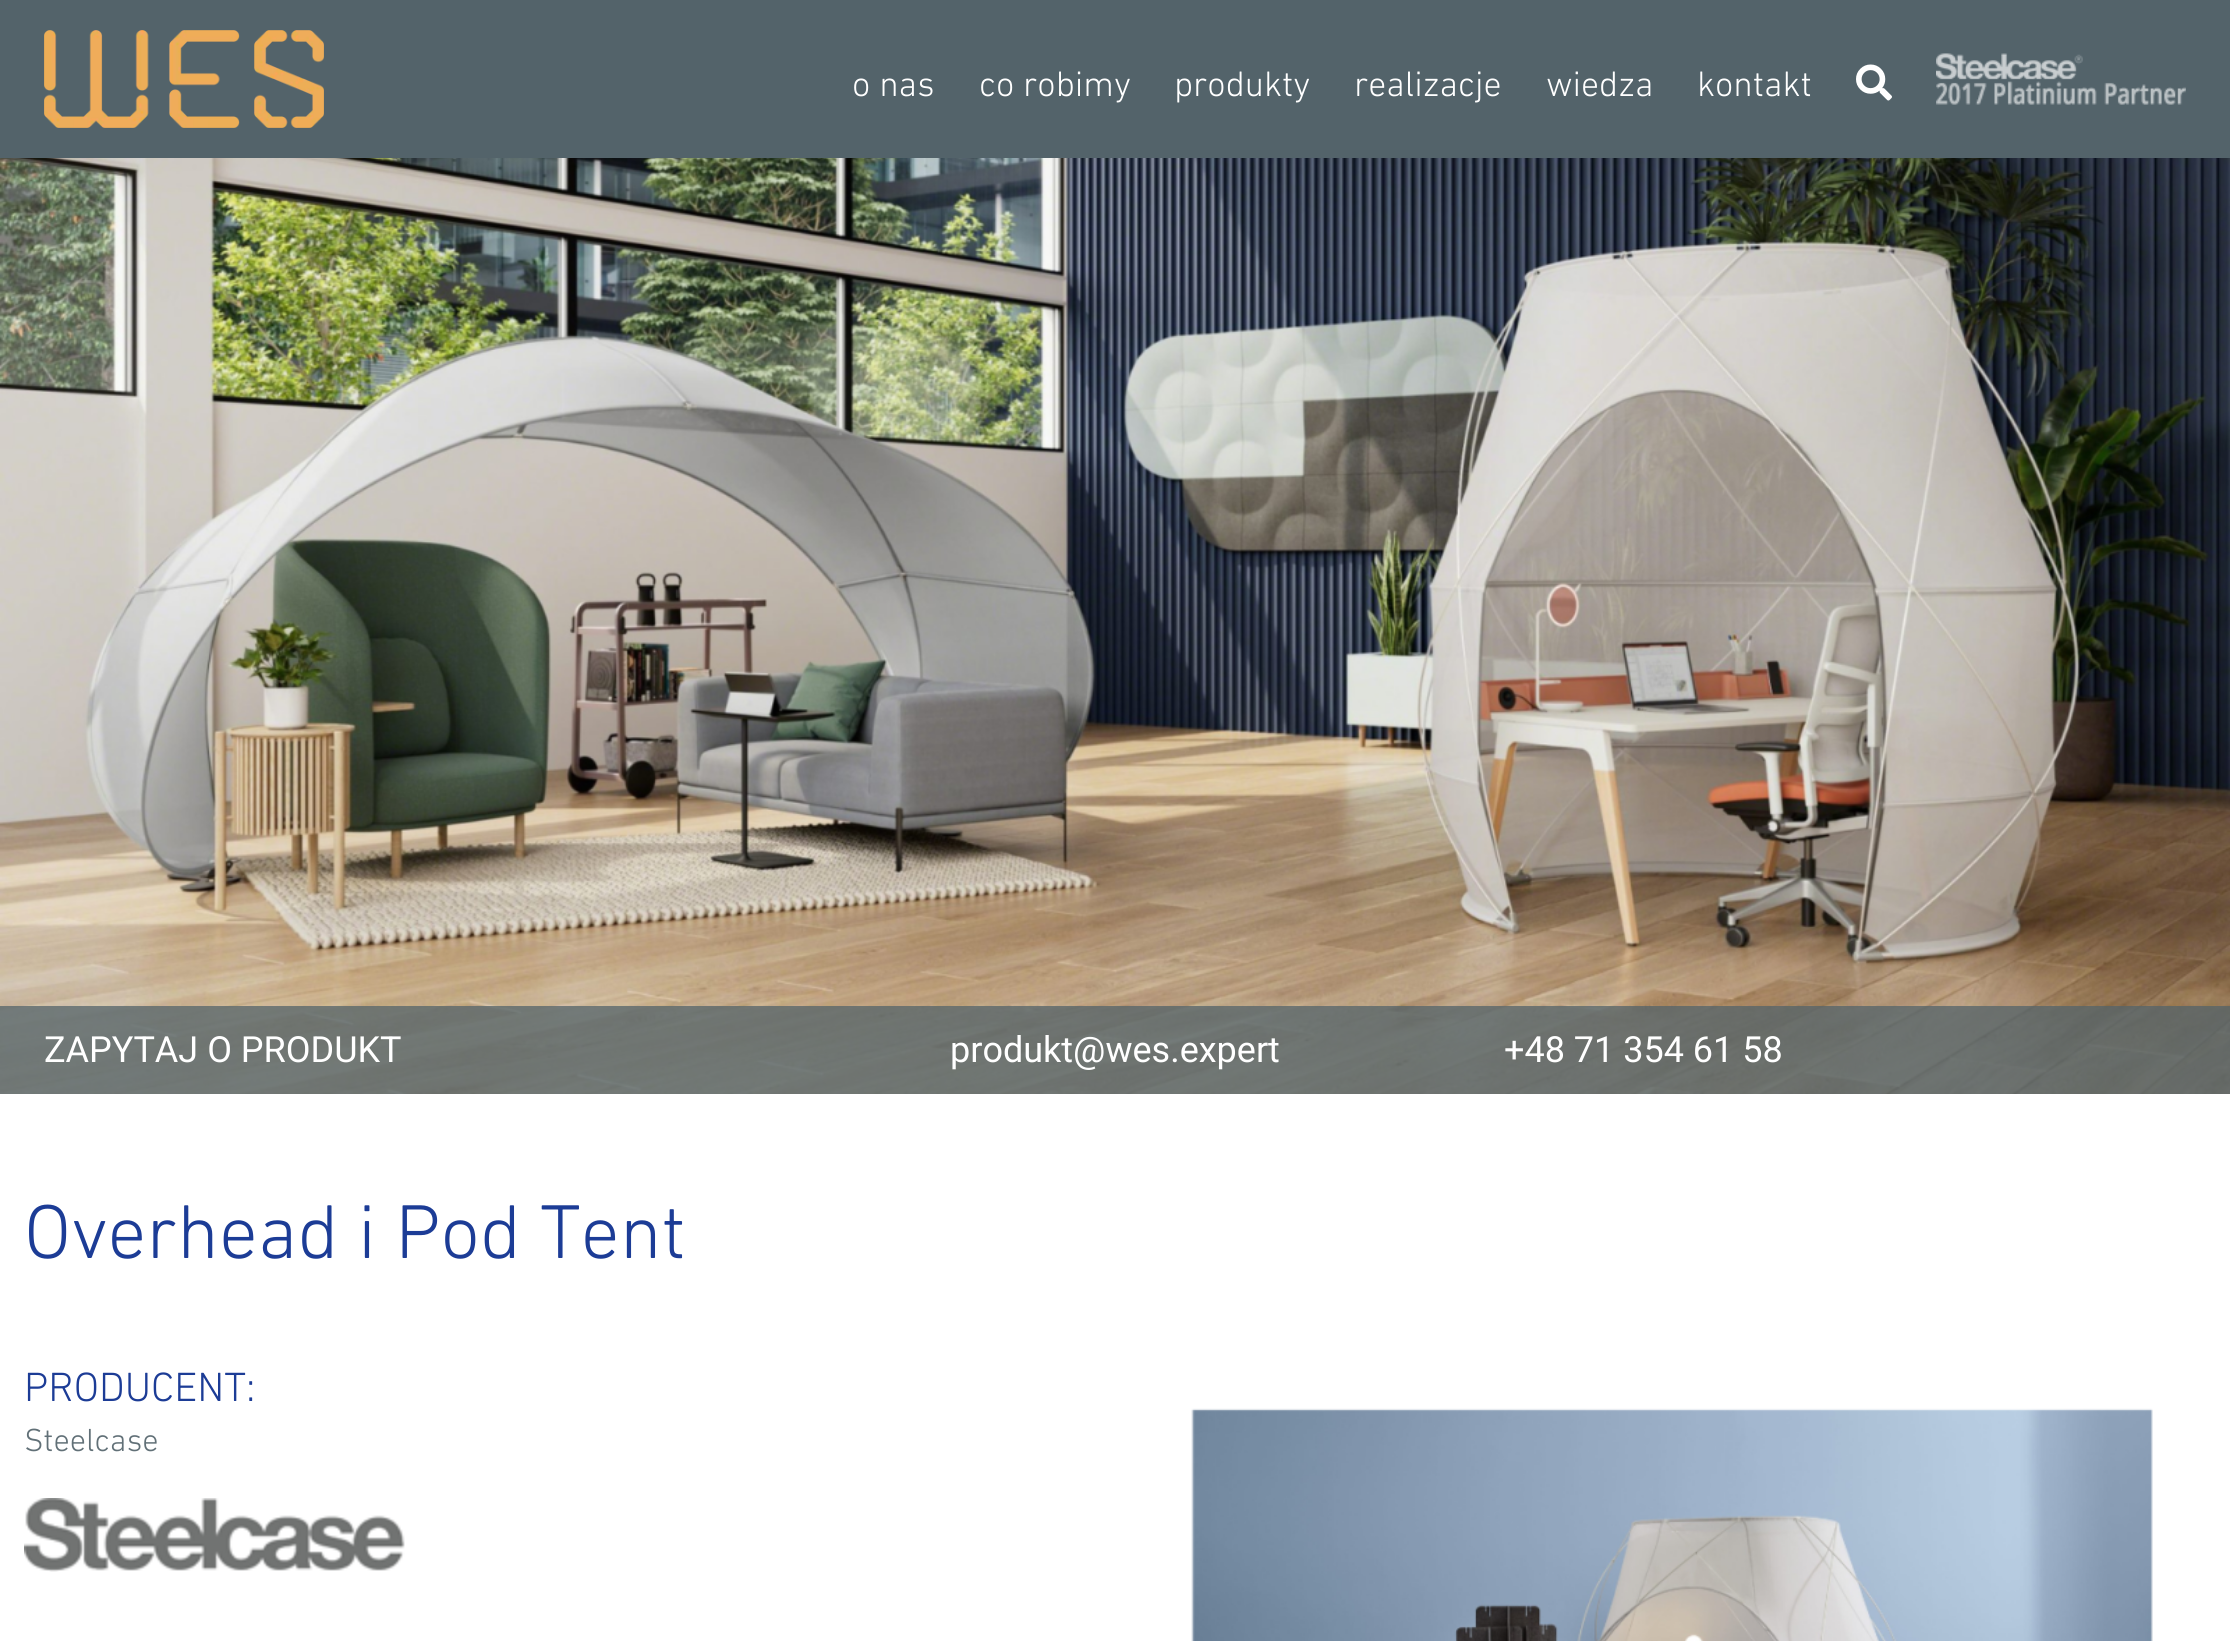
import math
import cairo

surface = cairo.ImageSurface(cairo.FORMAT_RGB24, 2230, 1641)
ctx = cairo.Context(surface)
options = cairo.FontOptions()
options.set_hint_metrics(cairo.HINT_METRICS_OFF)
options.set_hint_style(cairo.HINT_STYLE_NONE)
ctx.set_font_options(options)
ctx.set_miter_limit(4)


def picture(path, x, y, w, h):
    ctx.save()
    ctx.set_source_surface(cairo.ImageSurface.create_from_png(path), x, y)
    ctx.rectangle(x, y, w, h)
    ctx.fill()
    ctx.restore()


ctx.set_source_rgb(1, 1, 1)
ctx.paint()
ctx.set_source_rgb(0.325, 0.388, 0.416)
ctx.rectangle(0, 0, 2230, 158)
ctx.fill()
picture("img1.png", 44, 30, 280, 98)
ctx.select_font_face("DIN Next Light")
ctx.set_font_size(36)
ctx.set_source_rgb(1, 1, 1)
ctx.move_to(852, 96)
ctx.show_text("o nas")
ctx.move_to(979, 96)
ctx.show_text("co robimy")
ctx.move_to(1174, 96)
ctx.show_text("produkty")
ctx.move_to(1354, 96)
ctx.show_text("realizacje")
ctx.move_to(1546, 96)
ctx.show_text("wiedza")
ctx.move_to(1697, 96)
ctx.show_text("kontakt")
picture("img2.png", 1856, 64, 36, 37)
picture("img3.png", 1936, 53, 250, 52)
picture("img4.png", 0, 158, 2230, 936)
ctx.set_source_rgba(0.325, 0.388, 0.416, 0.75)
ctx.rectangle(0, 1006, 2230, 88)
ctx.fill()
ctx.select_font_face("Roboto")
ctx.set_source_rgb(1, 1, 1)
ctx.move_to(44, 1062)
ctx.show_text("ZAPYTAJ O PRODUKT")
ctx.move_to(950, 1062)
ctx.show_text("produkt@wes.expert")
ctx.move_to(1504, 1062)
ctx.show_text("+48 71 354 61 58")
ctx.select_font_face("DIN Next Light")
ctx.set_font_size(77.5)
ctx.set_source_rgb(0.11, 0.235, 0.588)
ctx.move_to(24, 1258)
ctx.show_text("Overhead i Pod Tent")
ctx.set_font_size(41.5)
ctx.move_to(24, 1401)
ctx.show_text("PRODUCENT:")
ctx.set_font_size(32.5)
ctx.set_source_rgb(0.38, 0.439, 0.467)
ctx.move_to(24, 1451)
ctx.show_text("Steelcase")
picture("img5.png", 24, 1498, 381, 74)
picture("img6.png", 1191, 1408, 962, 233)
surface.write_to_png("page.png")
